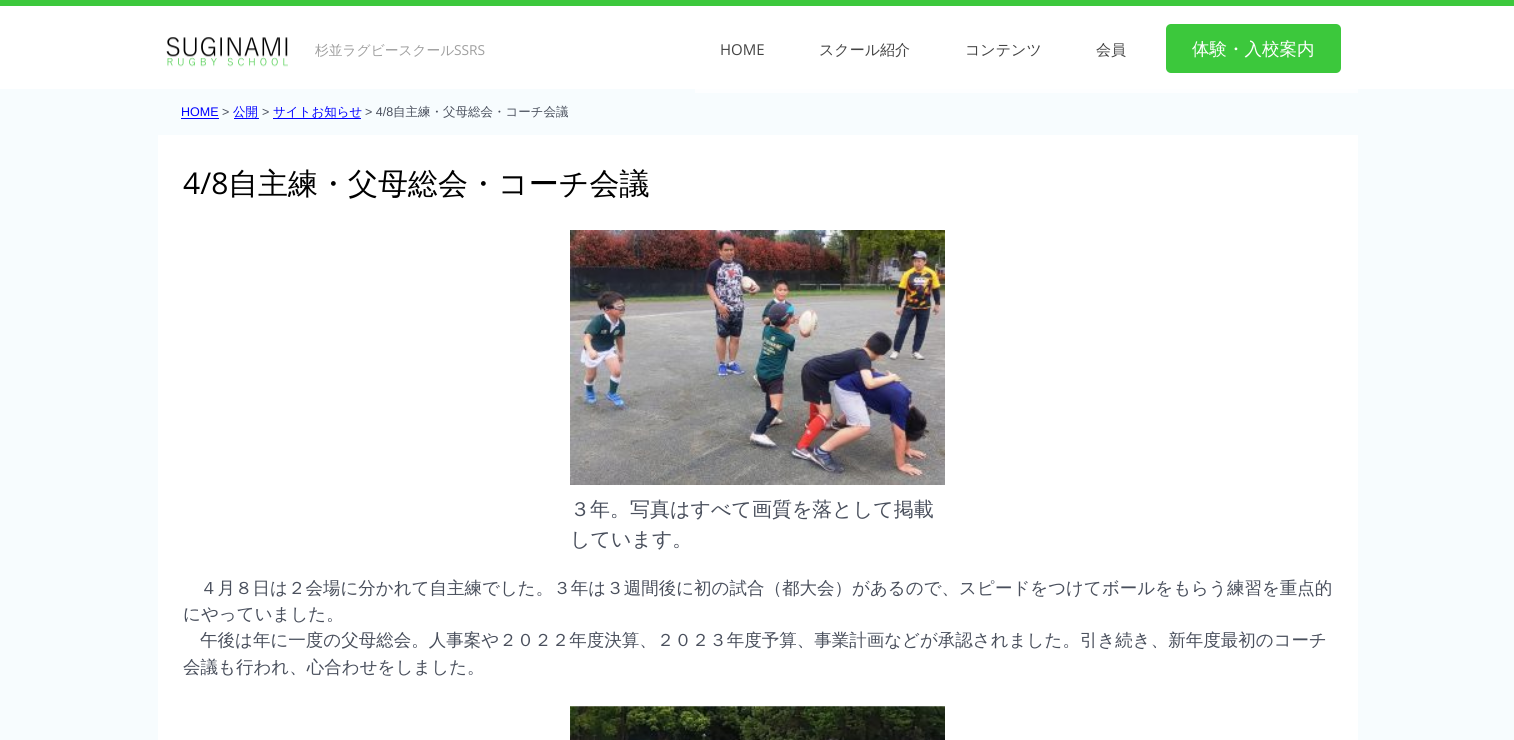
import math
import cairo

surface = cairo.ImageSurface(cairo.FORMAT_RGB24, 1514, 740)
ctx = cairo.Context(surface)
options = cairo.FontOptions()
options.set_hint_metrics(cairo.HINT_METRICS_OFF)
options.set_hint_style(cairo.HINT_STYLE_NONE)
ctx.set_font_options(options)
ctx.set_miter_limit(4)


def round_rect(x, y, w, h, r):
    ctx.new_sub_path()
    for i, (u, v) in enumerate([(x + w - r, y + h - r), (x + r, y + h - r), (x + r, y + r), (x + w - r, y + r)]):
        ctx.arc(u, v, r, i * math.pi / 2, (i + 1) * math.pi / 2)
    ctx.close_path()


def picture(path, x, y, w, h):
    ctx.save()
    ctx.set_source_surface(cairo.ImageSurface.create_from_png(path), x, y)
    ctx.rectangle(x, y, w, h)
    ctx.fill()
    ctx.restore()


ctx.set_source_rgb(0.965, 0.988, 0.996)
ctx.paint()
ctx.set_source_rgb(0.992, 0.996, 1)
ctx.rectangle(695, 89, 663, 4)
ctx.fill()
ctx.set_source_rgb(1, 1, 1)
ctx.rectangle(0, 6, 1514, 83)
ctx.fill()
ctx.set_source_rgb(0.235, 0.784, 0.235)
ctx.rectangle(0, 0, 1514, 6)
ctx.fill()
picture("img1.png", 166, 37, 122, 30)
ctx.select_font_face("WenQuanYi Zen Hei Medium")
ctx.set_font_size(13.75)
ctx.set_source_rgb(0.624, 0.624, 0.624)
ctx.move_to(315, 55)
ctx.show_text("杉並ラグビースクール")
ctx.select_font_face("Open Sans")
ctx.move_to(454, 55)
ctx.show_text("SSRS")
ctx.set_font_size(15)
ctx.set_source_rgb(0.267, 0.267, 0.267)
ctx.move_to(720, 55)
ctx.show_text("HOME")
ctx.select_font_face("WenQuanYi Zen Hei Medium")
ctx.move_to(819, 55)
ctx.show_text("スクール紹介")
ctx.move_to(965, 55)
ctx.show_text("コンテンツ")
ctx.move_to(1096, 55)
ctx.show_text("会員")
ctx.set_source_rgb(0.235, 0.784, 0.235)
round_rect(1166, 24, 175, 49, 5)
ctx.fill()
ctx.set_font_size(17.5)
ctx.set_source_rgb(1, 1, 1)
ctx.move_to(1192, 55)
ctx.show_text("体験・入校案内")
ctx.select_font_face("Arimo")
ctx.set_font_size(12.5)
ctx.set_source_rgb(0, 0, 1)
ctx.move_to(181, 116)
ctx.show_text("HOME")
ctx.rectangle(181, 118, 38, 1)
ctx.fill()
ctx.set_source_rgb(0.286, 0.31, 0.361)
ctx.move_to(222, 116)
ctx.show_text(">")
ctx.select_font_face("WenQuanYi Zen Hei Medium")
ctx.set_source_rgb(0, 0, 1)
ctx.move_to(233, 116)
ctx.show_text("公開")
ctx.rectangle(234, 118, 25, 1)
ctx.fill()
ctx.select_font_face("Arimo")
ctx.set_source_rgb(0.286, 0.31, 0.361)
ctx.move_to(262, 116)
ctx.show_text(">")
ctx.select_font_face("WenQuanYi Zen Hei Medium")
ctx.set_source_rgb(0, 0, 1)
ctx.move_to(273, 116)
ctx.show_text("サイトお知らせ")
ctx.rectangle(273, 118, 88, 1)
ctx.fill()
ctx.select_font_face("Arimo")
ctx.set_source_rgb(0.286, 0.31, 0.361)
ctx.move_to(365, 116)
ctx.show_text("> 4/8")
ctx.select_font_face("WenQuanYi Zen Hei Medium")
ctx.move_to(393, 116)
ctx.show_text("自主練・父母総会・コーチ会議")
ctx.set_source_rgb(1, 1, 1)
ctx.rectangle(158, 135, 1200, 605)
ctx.fill()
ctx.select_font_face("Open Sans")
ctx.set_font_size(30)
ctx.set_source_rgb(0, 0, 0)
ctx.move_to(183, 194)
ctx.show_text("4/8")
ctx.select_font_face("WenQuanYi Zen Hei Medium")
ctx.move_to(228, 194)
ctx.show_text("自主練・父母総会・コーチ会議")
picture("img2.png", 570, 230, 375, 255)
ctx.set_font_size(20)
ctx.set_source_rgb(0.286, 0.31, 0.361)
ctx.move_to(570, 516)
ctx.show_text("３年。写真はすべて画質を落として掲載")
ctx.move_to(570, 546)
ctx.show_text("しています。")
ctx.set_font_size(17.5)
ctx.move_to(200, 594)
ctx.show_text("４月８日は２会場に分かれて自主練でした。３年は３週間後に初の試合（都大会）があるので、スピードをつけてボールをもらう練習を重点的")
ctx.move_to(183, 620)
ctx.show_text("にやっていました。")
ctx.move_to(200, 646)
ctx.show_text("午後は年に一度の父母総会。人事案や２０２２年度決算、２０２３年度予算、事業計画などが承認されました。引き続き、新年度最初のコーチ")
ctx.move_to(183, 673)
ctx.show_text("会議も行われ、心合わせをしました。")
picture("img3.png", 570, 706, 375, 34)
surface.write_to_png("page.png")
